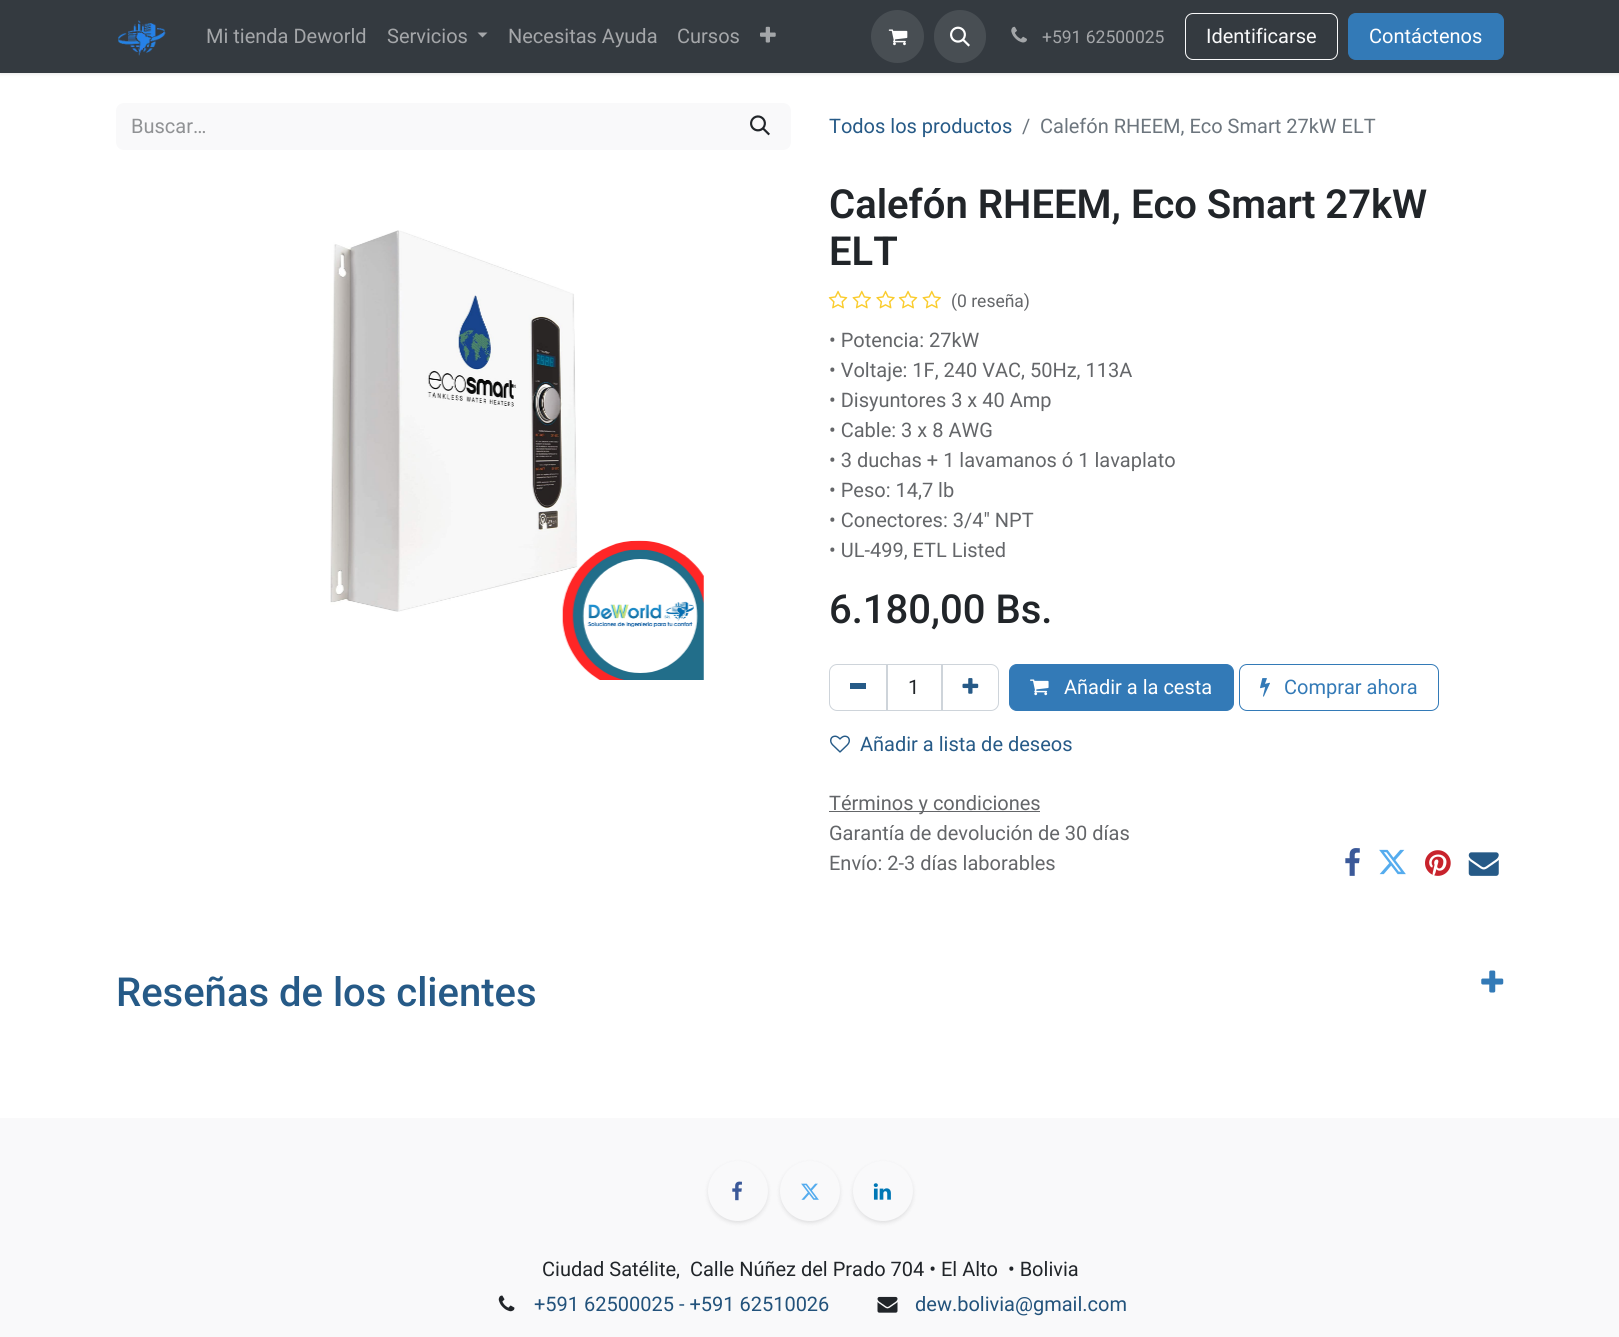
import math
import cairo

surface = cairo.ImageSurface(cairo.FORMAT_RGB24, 1619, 1337)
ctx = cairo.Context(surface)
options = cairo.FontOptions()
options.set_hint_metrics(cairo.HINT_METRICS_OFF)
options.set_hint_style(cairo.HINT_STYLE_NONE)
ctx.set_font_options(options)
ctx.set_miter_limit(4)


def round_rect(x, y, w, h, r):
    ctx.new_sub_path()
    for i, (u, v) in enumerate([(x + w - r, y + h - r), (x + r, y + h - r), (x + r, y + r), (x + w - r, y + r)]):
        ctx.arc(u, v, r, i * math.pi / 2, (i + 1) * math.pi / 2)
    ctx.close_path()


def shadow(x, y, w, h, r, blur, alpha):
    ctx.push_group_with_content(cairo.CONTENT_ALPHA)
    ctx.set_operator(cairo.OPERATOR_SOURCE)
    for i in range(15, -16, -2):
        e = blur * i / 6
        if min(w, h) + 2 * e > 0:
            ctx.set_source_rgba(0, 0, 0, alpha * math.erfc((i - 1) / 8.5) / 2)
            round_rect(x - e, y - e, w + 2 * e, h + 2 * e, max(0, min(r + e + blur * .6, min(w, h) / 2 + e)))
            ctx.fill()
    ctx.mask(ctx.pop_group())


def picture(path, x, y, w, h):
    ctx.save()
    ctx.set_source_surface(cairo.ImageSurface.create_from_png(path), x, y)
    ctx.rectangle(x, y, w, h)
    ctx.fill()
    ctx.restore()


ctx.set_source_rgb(1, 1, 1)
ctx.paint()
ctx.set_source_rgb(0, 0, 0)
shadow(0, 1, 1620, 73, 0, 2, 0.1)
ctx.set_source_rgb(0.204, 0.227, 0.251)
ctx.rectangle(0, 0, 1619, 73)
ctx.fill()
picture("img1.png", 118, 20, 48, 36)
ctx.select_font_face("Roboto")
ctx.set_font_size(20)
ctx.set_source_rgb(0.643, 0.651, 0.663)
ctx.move_to(206, 43)
ctx.show_text("Mi tienda Deworld")
ctx.move_to(387, 43)
ctx.show_text("Servicios")
ctx.new_path()
ctx.move_to(477.5, 32.5)
ctx.line_to(487.5, 32.5)
ctx.line_to(482.5, 37.5)
ctx.close_path()
ctx.fill()
ctx.move_to(508, 43)
ctx.show_text("Necesitas Ayuda")
ctx.move_to(677, 43)
ctx.show_text("Cursos")
picture("img2.png", 760, 26, 16, 17)
ctx.set_source_rgb(0.282, 0.306, 0.325)
ctx.arc(897.5, 36.5, 26.5, 0, 2 * math.pi)
ctx.fill()
picture("img3.png", 888, 29, 20, 17)
round_rect(934, 10, 52, 53, 26)
ctx.fill()
picture("img4.png", 950, 26, 20, 21)
picture("img5.png", 1011, 26, 16, 17)
ctx.set_font_size(17.5)
ctx.set_source_rgb(0.643, 0.651, 0.663)
ctx.move_to(1042, 43)
ctx.show_text("+591 62500025")
round_rect(1185.5, 13.5, 152, 46, 7.5)
ctx.set_source_rgb(0.973, 0.976, 0.98)
ctx.set_line_width(1)
ctx.stroke()
ctx.set_font_size(20)
ctx.move_to(1206, 43)
ctx.show_text("Identificarse")
ctx.set_source_rgb(0.2, 0.478, 0.718)
round_rect(1348.5, 13.5, 155, 46, 7.5)
ctx.fill_preserve()
ctx.stroke()
ctx.set_source_rgb(1, 1, 1)
ctx.move_to(1369, 43)
ctx.show_text("Contáctenos")
ctx.set_source_rgb(0.973, 0.976, 0.98)
ctx.new_path()
ctx.move_to(124, 103)
ctx.line_to(730, 103)
ctx.line_to(730, 150)
ctx.line_to(124, 150)
ctx.curve_to(119.5, 150, 116, 146.5, 116, 142)
ctx.line_to(116, 111)
ctx.curve_to(116, 106.5, 119.5, 103, 124, 103)
ctx.close_path()
ctx.fill()
ctx.set_source_rgb(0.565, 0.573, 0.58)
ctx.move_to(131, 133)
ctx.show_text("Buscar…")
ctx.set_source_rgb(0.973, 0.976, 0.98)
ctx.new_path()
ctx.move_to(729, 103)
ctx.line_to(783, 103)
ctx.curve_to(787.5, 103, 791, 106.5, 791, 111)
ctx.line_to(791, 142)
ctx.curve_to(791, 146.5, 787.5, 150, 783, 150)
ctx.line_to(729, 150)
ctx.close_path()
ctx.fill()
picture("img6.png", 750, 115, 20, 21)
ctx.set_source_rgb(0.149, 0.353, 0.529)
ctx.move_to(829, 133)
ctx.show_text("Todos los productos")
ctx.set_source_rgb(0.424, 0.459, 0.49)
ctx.move_to(1022, 133)
ctx.show_text("/")
ctx.move_to(1040, 133)
ctx.show_text("Calefón RHEEM, Eco Smart 27kW ELT")
picture("img7.png", 330, 230, 374, 450)
ctx.select_font_face("Roboto SemiBold")
ctx.set_font_size(40)
ctx.set_source_rgb(0.129, 0.145, 0.161)
ctx.move_to(829, 218)
ctx.show_text("Calefón RHEEM, Eco Smart 27kW")
ctx.move_to(829, 265)
ctx.show_text("ELT")
picture("img8.png", 828, 290, 20, 19)
picture("img9.png", 852, 290, 19, 19)
picture("img10.png", 876, 290, 19, 19)
picture("img8.png", 898, 290, 20, 19)
picture("img9.png", 922, 290, 19, 19)
ctx.select_font_face("Roboto")
ctx.set_font_size(17.5)
ctx.set_source_rgb(0.392, 0.4, 0.412)
ctx.move_to(951, 307)
ctx.show_text("(0 reseña)")
ctx.set_font_size(20)
ctx.move_to(829, 347)
ctx.show_text("• Potencia: 27kW")
ctx.move_to(829, 377)
ctx.show_text("• Voltaje: 1F, 240 VAC, 50Hz, 113A")
ctx.move_to(829, 407)
ctx.show_text("• Disyuntores 3 x 40 Amp")
ctx.move_to(829, 437)
ctx.show_text("• Cable: 3 x 8 AWG")
ctx.move_to(829, 467)
ctx.show_text("• 3 duchas + 1 lavamanos ó 1 lavaplato")
ctx.move_to(829, 497)
ctx.show_text("• Peso: 14,7 lb")
ctx.move_to(829, 527)
ctx.show_text("• Conectores: 3/4\" NPT")
ctx.move_to(829, 557)
ctx.show_text("• UL-499, ETL Listed")
ctx.select_font_face("Roboto Medium")
ctx.set_font_size(40)
ctx.set_source_rgb(0.129, 0.145, 0.161)
ctx.move_to(829, 623)
ctx.show_text("6.180,00 Bs.")
ctx.rectangle(886.5, 664.5, 56, 46)
ctx.set_source_rgb(0.808, 0.831, 0.855)
ctx.stroke()
ctx.new_path()
ctx.move_to(837, 664.5)
ctx.line_to(887.5, 664.5)
ctx.line_to(887.5, 710.5)
ctx.line_to(837, 710.5)
ctx.curve_to(833, 710.5, 829.5, 707, 829.5, 703)
ctx.line_to(829.5, 672)
ctx.curve_to(829.5, 668, 833, 664.5, 837, 664.5)
ctx.close_path()
ctx.stroke()
ctx.set_source_rgb(0.149, 0.353, 0.529)
ctx.rectangle(850, 683, 16, 6)
ctx.fill()
ctx.select_font_face("Roboto")
ctx.set_font_size(20)
ctx.set_source_rgb(0.129, 0.145, 0.161)
ctx.move_to(908, 694)
ctx.show_text("1")
ctx.new_path()
ctx.move_to(941.5, 664.5)
ctx.line_to(991, 664.5)
ctx.curve_to(995, 664.5, 998.5, 668, 998.5, 672)
ctx.line_to(998.5, 703)
ctx.curve_to(998.5, 707, 995, 710.5, 991, 710.5)
ctx.line_to(941.5, 710.5)
ctx.close_path()
ctx.set_source_rgb(0.808, 0.831, 0.855)
ctx.stroke()
picture("img11.png", 962, 678, 17, 16)
ctx.set_source_rgb(0.2, 0.478, 0.718)
round_rect(1009.5, 664.5, 224, 46, 7.5)
ctx.fill_preserve()
ctx.stroke()
picture("img12.png", 1030, 679, 19, 17)
ctx.set_source_rgb(1, 1, 1)
ctx.move_to(1064, 694)
ctx.show_text("Añadir a la cesta")
round_rect(1239.5, 664.5, 199, 46, 7.5)
ctx.set_source_rgb(0.2, 0.478, 0.718)
ctx.stroke()
picture("img13.png", 1260, 678, 10, 19)
ctx.move_to(1284, 694)
ctx.show_text("Comprar ahora")
picture("img14.png", 830, 735, 20, 18)
ctx.set_source_rgb(0.149, 0.353, 0.529)
ctx.move_to(860, 751)
ctx.show_text("Añadir a lista de deseos")
ctx.set_source_rgb(0.392, 0.4, 0.412)
ctx.rectangle(829, 811, 211, 1)
ctx.fill()
ctx.move_to(829, 810)
ctx.show_text("Términos y condiciones")
ctx.move_to(829, 840)
ctx.show_text("Garantía de devolución de 30 días")
ctx.move_to(829, 870)
ctx.show_text("Envío: 2-3 días laborables")
picture("img15.png", 1345, 848, 15, 28)
picture("img16.png", 1379, 849, 27, 26)
picture("img17.png", 1425, 850, 26, 26)
picture("img18.png", 1468, 852, 31, 24)
ctx.select_font_face("Roboto Medium")
ctx.set_font_size(40)
ctx.set_source_rgb(0.149, 0.353, 0.529)
ctx.move_to(116, 1006)
ctx.show_text("Reseñas de los clientes")
picture("img19.png", 1481, 970, 23, 23)
ctx.set_source_rgb(0.973, 0.976, 0.98)
ctx.rectangle(0, 1118, 1619, 219)
ctx.fill()
ctx.set_source_rgb(0, 0, 0)
shadow(708, 1163, 60, 60, 30, 2, 0.1)
ctx.set_source_rgb(0.973, 0.976, 0.98)
ctx.arc(738, 1191, 30, 0, 2 * math.pi)
ctx.fill()
picture("img20.png", 732, 1181, 10, 20)
ctx.set_source_rgb(0, 0, 0)
shadow(780, 1163, 60, 60, 30, 2, 0.1)
ctx.set_source_rgb(0.973, 0.976, 0.98)
ctx.arc(810, 1191, 30, 0, 2 * math.pi)
ctx.fill()
picture("img21.png", 801, 1183, 18, 17)
ctx.set_source_rgb(0, 0, 0)
shadow(853, 1163, 60, 60, 30, 2, 0.1)
ctx.set_source_rgb(0.973, 0.976, 0.98)
ctx.arc(883, 1191, 30, 0, 2 * math.pi)
ctx.fill()
picture("img22.png", 873, 1183, 18, 17)
ctx.select_font_face("Roboto")
ctx.set_font_size(20)
ctx.set_source_rgb(0.129, 0.145, 0.161)
ctx.move_to(542, 1276)
ctx.show_text("Ciudad Satélite,  Calle Núñez del Prado 704 • El Alto  • Bolivia")
picture("img23.png", 498, 1295, 17, 17)
ctx.set_source_rgb(0.133, 0.322, 0.482)
ctx.move_to(534, 1311)
ctx.show_text("+591 62500025 - +591 62510026")
picture("img24.png", 877, 1296, 21, 17)
ctx.move_to(915, 1311)
ctx.show_text("dew.bolivia@gmail.com")
surface.write_to_png("page.png")
